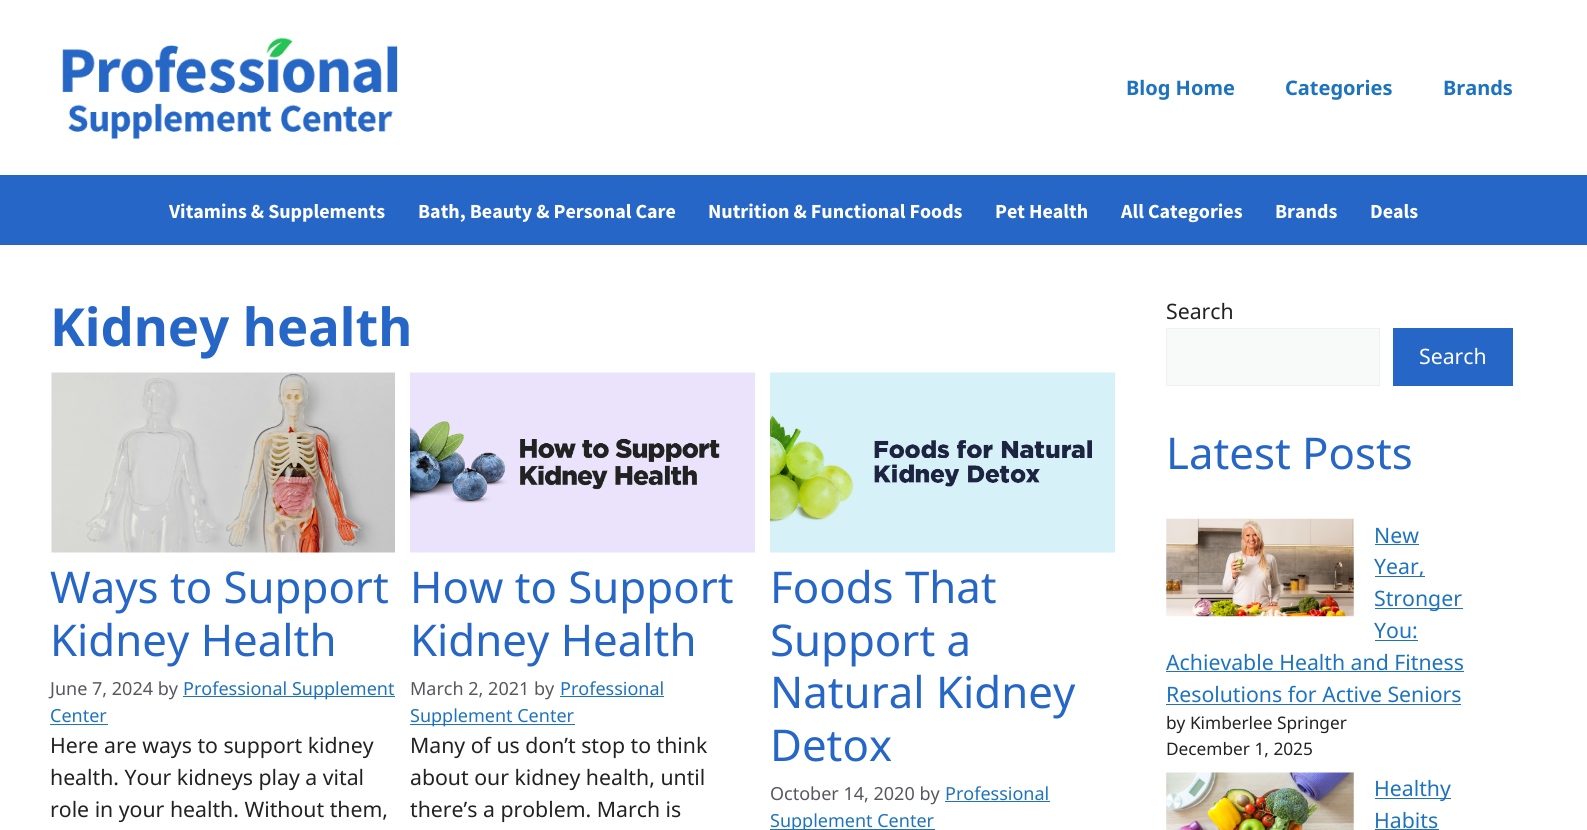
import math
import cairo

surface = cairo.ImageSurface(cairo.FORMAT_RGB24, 1587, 830)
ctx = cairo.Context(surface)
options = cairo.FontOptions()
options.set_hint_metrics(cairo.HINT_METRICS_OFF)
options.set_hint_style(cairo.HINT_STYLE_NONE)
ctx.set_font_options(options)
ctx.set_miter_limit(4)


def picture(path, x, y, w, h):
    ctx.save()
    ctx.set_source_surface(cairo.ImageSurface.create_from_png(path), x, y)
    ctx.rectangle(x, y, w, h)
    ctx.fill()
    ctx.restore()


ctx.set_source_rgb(1, 1, 1)
ctx.paint()
picture("img1.png", 62, 37, 336, 103)
ctx.select_font_face("Noto Sans", cairo.FONT_SLANT_NORMAL, cairo.FONT_WEIGHT_BOLD)
ctx.set_font_size(20)
ctx.set_source_rgb(0.118, 0.451, 0.745)
ctx.move_to(1126, 95)
ctx.show_text("Blog Home")
ctx.move_to(1285, 95)
ctx.show_text("Categories")
ctx.move_to(1443, 95)
ctx.show_text("Brands")
ctx.set_source_rgb(0.149, 0.4, 0.776)
ctx.rectangle(0, 175, 1587, 70)
ctx.fill()
ctx.select_font_face("Source Sans Pro", cairo.FONT_SLANT_NORMAL, cairo.FONT_WEIGHT_BOLD)
ctx.set_source_rgb(1, 1, 1)
ctx.move_to(169, 218)
ctx.show_text("Vitamins & Supplements")
ctx.move_to(418, 218)
ctx.show_text("Bath, Beauty & Personal Care")
ctx.move_to(708, 218)
ctx.show_text("Nutrition & Functional Foods")
ctx.move_to(995, 218)
ctx.show_text("Pet Health")
ctx.move_to(1121, 218)
ctx.show_text("All Categories")
ctx.move_to(1275, 218)
ctx.show_text("Brands")
ctx.move_to(1370, 218)
ctx.show_text("Deals")
ctx.select_font_face("Noto Sans", cairo.FONT_SLANT_NORMAL, cairo.FONT_WEIGHT_BOLD)
ctx.set_font_size(52.5)
ctx.set_source_rgb(0.149, 0.4, 0.776)
ctx.move_to(50, 346)
ctx.show_text("Kidney health")
picture("img2.png", 51, 372, 344, 181)
ctx.select_font_face("Noto Sans")
ctx.set_font_size(43.75)
ctx.move_to(50, 603)
ctx.show_text("Ways to Support")
ctx.move_to(50, 656)
ctx.show_text("Kidney Health")
ctx.set_font_size(18)
ctx.set_source_rgb(0.341, 0.341, 0.376)
ctx.move_to(50, 695)
ctx.show_text("June 7, 2024 by")
ctx.set_source_rgb(0.118, 0.451, 0.745)
ctx.rectangle(183, 696, 212, 1)
ctx.fill()
ctx.move_to(183, 695)
ctx.show_text("Professional Supplement")
ctx.move_to(50, 722)
ctx.show_text("Center")
ctx.rectangle(50, 724, 58, 1)
ctx.fill()
ctx.set_font_size(21.25)
ctx.set_source_rgb(0.133, 0.133, 0.133)
ctx.move_to(50, 753)
ctx.show_text("Here are ways to support kidney")
ctx.move_to(50, 785)
ctx.show_text("health. Your kidneys play a vital")
ctx.move_to(50, 817)
ctx.show_text("role in your health. Without them,")
picture("img3.png", 410, 372, 345, 181)
ctx.set_font_size(43.75)
ctx.set_source_rgb(0.149, 0.4, 0.776)
ctx.move_to(410, 603)
ctx.show_text("How to Support")
ctx.move_to(410, 656)
ctx.show_text("Kidney Health")
ctx.set_font_size(18)
ctx.set_source_rgb(0.341, 0.341, 0.376)
ctx.move_to(410, 695)
ctx.show_text("March 2, 2021 by")
ctx.set_source_rgb(0.118, 0.451, 0.745)
ctx.move_to(560, 695)
ctx.show_text("Professional")
ctx.rectangle(560, 696, 104, 1)
ctx.fill()
ctx.rectangle(410, 724, 165, 1)
ctx.fill()
ctx.move_to(410, 722)
ctx.show_text("Supplement Center")
ctx.set_font_size(21.25)
ctx.set_source_rgb(0.133, 0.133, 0.133)
ctx.move_to(410, 753)
ctx.show_text("Many of us don’t stop to think")
ctx.move_to(410, 785)
ctx.show_text("about our kidney health, until")
ctx.move_to(410, 817)
ctx.show_text("there’s a problem. March is")
picture("img4.png", 770, 372, 345, 181)
ctx.set_font_size(43.75)
ctx.set_source_rgb(0.149, 0.4, 0.776)
ctx.move_to(770, 603)
ctx.show_text("Foods That")
ctx.move_to(770, 656)
ctx.show_text("Support a")
ctx.move_to(770, 708)
ctx.show_text("Natural Kidney")
ctx.move_to(770, 761)
ctx.show_text("Detox")
ctx.set_font_size(18)
ctx.set_source_rgb(0.341, 0.341, 0.376)
ctx.move_to(770, 800)
ctx.show_text("October 14, 2020 by")
ctx.set_source_rgb(0.118, 0.451, 0.745)
ctx.move_to(945, 800)
ctx.show_text("Professional")
ctx.rectangle(945, 801, 105, 1)
ctx.fill()
ctx.rectangle(770, 829, 165, 1)
ctx.fill()
ctx.move_to(770, 827)
ctx.show_text("Supplement Center")
ctx.set_font_size(21.25)
ctx.set_source_rgb(0.133, 0.133, 0.133)
ctx.move_to(1166, 319)
ctx.show_text("Search")
ctx.set_source_rgb(0.969, 0.973, 0.976)
ctx.rectangle(1166.5, 328.5, 213, 57)
ctx.fill_preserve()
ctx.set_source_rgb(0.941, 0.941, 0.941)
ctx.set_line_width(1)
ctx.stroke()
ctx.set_source_rgb(0.149, 0.4, 0.776)
ctx.rectangle(1393, 328, 120, 58)
ctx.fill()
ctx.set_source_rgb(1, 1, 1)
ctx.move_to(1419, 364)
ctx.show_text("Search")
ctx.set_font_size(43.75)
ctx.set_source_rgb(0.149, 0.4, 0.776)
ctx.move_to(1166, 469)
ctx.show_text("Latest Posts")
picture("img5.png", 1166, 518, 188, 99)
ctx.set_font_size(21.25)
ctx.set_source_rgb(0.118, 0.451, 0.745)
ctx.move_to(1374, 543)
ctx.show_text("New")
ctx.rectangle(1375, 544, 44, 1)
ctx.fill()
ctx.rectangle(1375, 576, 50, 1)
ctx.fill()
ctx.move_to(1374, 574)
ctx.show_text("Year,")
ctx.rectangle(1375, 608, 88, 1)
ctx.fill()
ctx.move_to(1374, 606)
ctx.show_text("Stronger")
ctx.move_to(1374, 638)
ctx.show_text("You:")
ctx.rectangle(1375, 640, 43, 1)
ctx.fill()
ctx.move_to(1166, 670)
ctx.show_text("Achievable Health and Fitness")
ctx.rectangle(1166, 671, 298, 1)
ctx.fill()
ctx.move_to(1166, 702)
ctx.show_text("Resolutions for Active Seniors")
ctx.rectangle(1166, 704, 295, 1)
ctx.fill()
ctx.set_font_size(17.25)
ctx.set_source_rgb(0.133, 0.133, 0.133)
ctx.move_to(1166, 729)
ctx.show_text("by Kimberlee Springer")
ctx.move_to(1166, 755)
ctx.show_text("December 1, 2025")
picture("img6.png", 1166, 772, 188, 58)
ctx.set_source_rgb(0.118, 0.451, 0.745)
ctx.rectangle(1375, 798, 76, 1)
ctx.fill()
ctx.set_font_size(21.25)
ctx.move_to(1374, 796)
ctx.show_text("Healthy")
ctx.move_to(1374, 828)
ctx.show_text("Habits")
ctx.rectangle(1375, 829, 64, 1)
ctx.fill()
surface.write_to_png("page.png")
